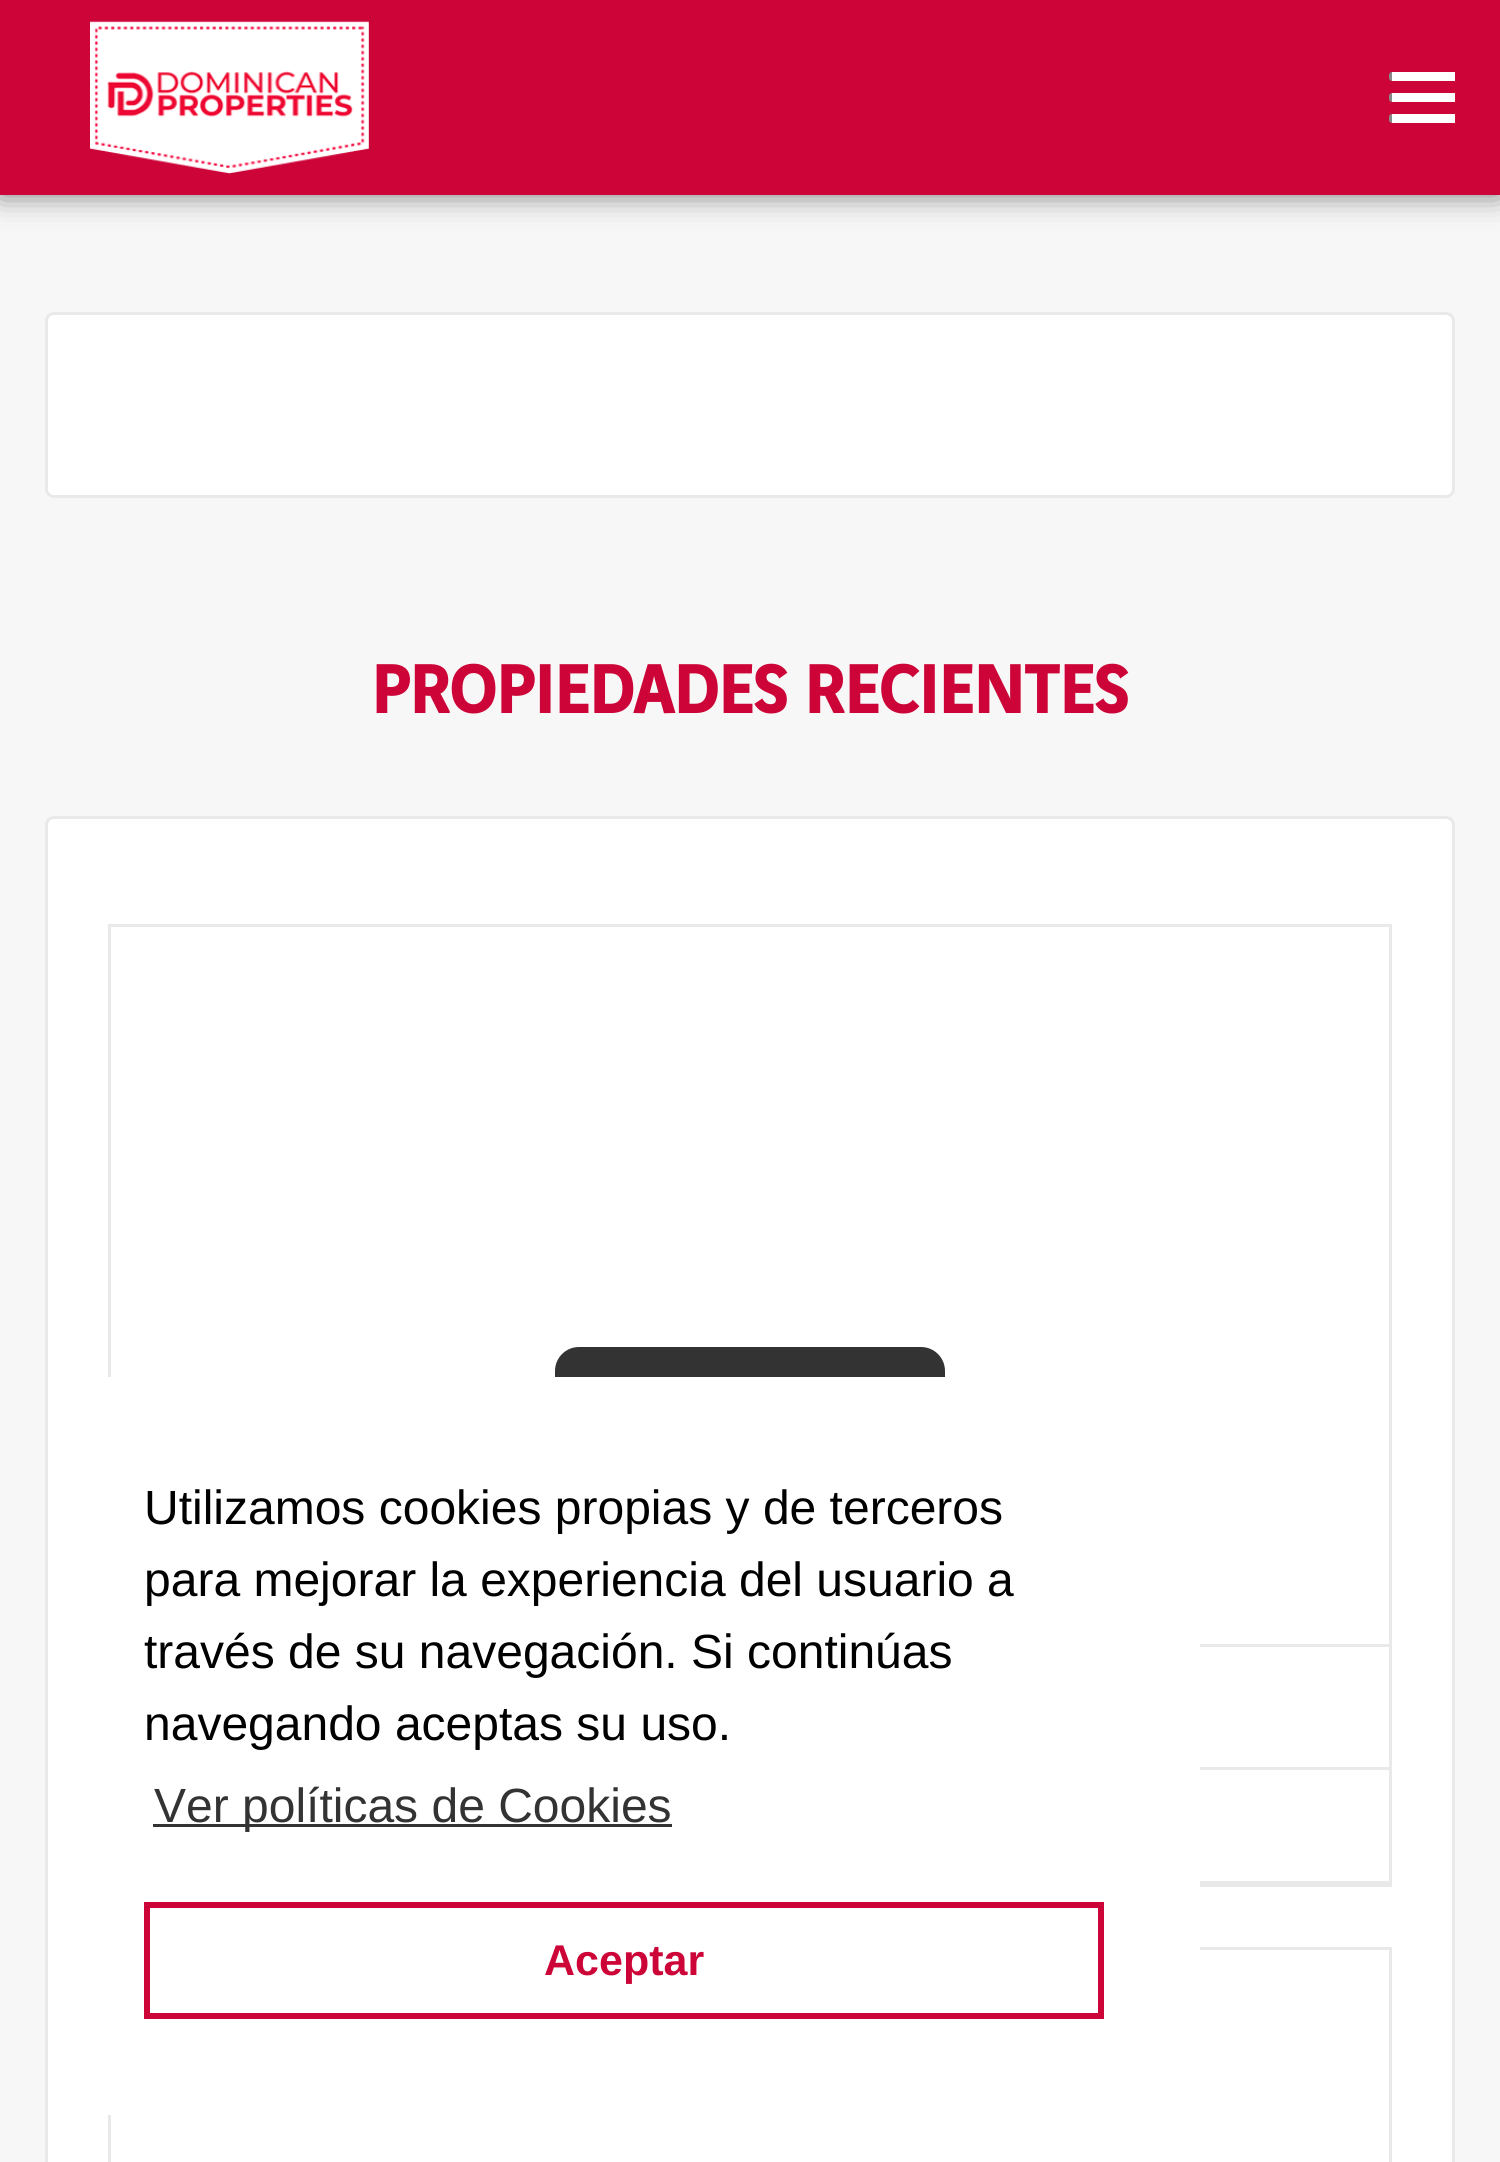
import math
import cairo

surface = cairo.ImageSurface(cairo.FORMAT_RGB24, 1500, 2162)
ctx = cairo.Context(surface)
options = cairo.FontOptions()
options.set_hint_metrics(cairo.HINT_METRICS_OFF)
options.set_hint_style(cairo.HINT_STYLE_NONE)
ctx.set_font_options(options)
ctx.set_miter_limit(4)


def round_rect(x, y, w, h, r):
    ctx.new_sub_path()
    for i, (u, v) in enumerate([(x + w - r, y + h - r), (x + r, y + h - r), (x + r, y + r), (x + w - r, y + r)]):
        ctx.arc(u, v, r, i * math.pi / 2, (i + 1) * math.pi / 2)
    ctx.close_path()


def shadow(x, y, w, h, r, blur, alpha):
    ctx.push_group_with_content(cairo.CONTENT_ALPHA)
    ctx.set_operator(cairo.OPERATOR_SOURCE)
    for i in range(15, -16, -2):
        e = blur * i / 6
        if min(w, h) + 2 * e > 0:
            ctx.set_source_rgba(0, 0, 0, alpha * math.erfc((i - 1) / 8.5) / 2)
            round_rect(x - e, y - e, w + 2 * e, h + 2 * e, max(0, min(r + e + blur * .6, min(w, h) / 2 + e)))
            ctx.fill()
    ctx.mask(ctx.pop_group())


def picture(path, x, y, w, h):
    ctx.save()
    ctx.set_source_surface(cairo.ImageSurface.create_from_png(path), x, y)
    ctx.rectangle(x, y, w, h)
    ctx.fill()
    ctx.restore()


ctx.set_source_rgb(0.965, 0.965, 0.965)
ctx.paint()
ctx.set_source_rgb(0, 0, 0)
shadow(0, 0, 1500, 195, 0, 15, 0.5)
ctx.set_source_rgb(0.804, 0.016, 0.216)
ctx.rectangle(0, 0, 1500, 195)
ctx.fill()
picture("img1.png", 90, 21, 279, 153)
ctx.set_source_rgb(0.533, 0.533, 0.533)
round_rect(1389, 72, 66, 9, 3)
ctx.fill()
ctx.set_source_rgb(1, 1, 1)
ctx.rectangle(1392, 72, 63, 9)
ctx.fill()
ctx.set_source_rgb(0.533, 0.533, 0.533)
round_rect(1389, 93, 66, 9, 3)
ctx.fill()
ctx.set_source_rgb(1, 1, 1)
ctx.rectangle(1392, 93, 63, 9)
ctx.fill()
ctx.set_source_rgb(0.533, 0.533, 0.533)
round_rect(1389, 114, 66, 9, 3)
ctx.fill()
ctx.set_source_rgb(1, 1, 1)
ctx.rectangle(1392, 114, 63, 9)
ctx.fill()
round_rect(46.5, 313.5, 1407, 183, 7.5)
ctx.fill_preserve()
ctx.set_source_rgb(0.914, 0.914, 0.914)
ctx.set_line_width(3)
ctx.stroke()
ctx.select_font_face("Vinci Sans", cairo.FONT_SLANT_NORMAL, cairo.FONT_WEIGHT_BOLD)
ctx.set_font_size(72)
ctx.set_source_rgb(0.804, 0.016, 0.216)
ctx.move_to(371, 713)
ctx.show_text("PROPIEDADES RECIENTES")
ctx.set_source_rgb(1, 1, 1)
round_rect(46.5, 817.5, 1407, 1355, 7.5)
ctx.fill_preserve()
ctx.set_source_rgb(0.914, 0.914, 0.914)
ctx.stroke()
ctx.rectangle(109.5, 925.5, 1281, 960)
ctx.stroke()
ctx.set_source_rgb(0.2, 0.2, 0.2)
round_rect(555, 1347, 390, 84, 24)
ctx.fill()
ctx.set_source_rgb(0.914, 0.914, 0.914)
ctx.rectangle(1200, 1644, 189, 3)
ctx.fill()
ctx.rectangle(1200, 1767, 189, 3)
ctx.fill()
ctx.rectangle(1200, 1881, 189, 3)
ctx.fill()
ctx.rectangle(109.5, 1948.5, 1281, 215)
ctx.stroke()
ctx.set_source_rgb(1, 1, 1)
ctx.rectangle(108, 1377, 1092, 738)
ctx.fill()
ctx.select_font_face("Liberation Sans")
ctx.set_font_size(48)
ctx.set_source_rgb(0, 0, 0)
ctx.move_to(144, 1524)
ctx.show_text("Utilizamos cookies propias y de terceros")
ctx.move_to(144, 1596)
ctx.show_text("para mejorar la experiencia del usuario a")
ctx.move_to(144, 1668)
ctx.show_text("través de su navegación. Si continúas")
ctx.move_to(144, 1740)
ctx.show_text("navegando aceptas su uso.")
ctx.set_source_rgb(0.2, 0.2, 0.2)
ctx.rectangle(153, 1824, 519, 3)
ctx.fill()
ctx.move_to(154, 1822)
ctx.show_text("Ver políticas de Cookies")
ctx.rectangle(147, 1905, 954, 111)
ctx.set_source_rgb(0.804, 0.016, 0.216)
ctx.set_line_width(6)
ctx.stroke()
ctx.select_font_face("Liberation Sans", cairo.FONT_SLANT_NORMAL, cairo.FONT_WEIGHT_BOLD)
ctx.set_font_size(43)
ctx.move_to(544, 1975)
ctx.show_text("Aceptar")
surface.write_to_png("page.png")
